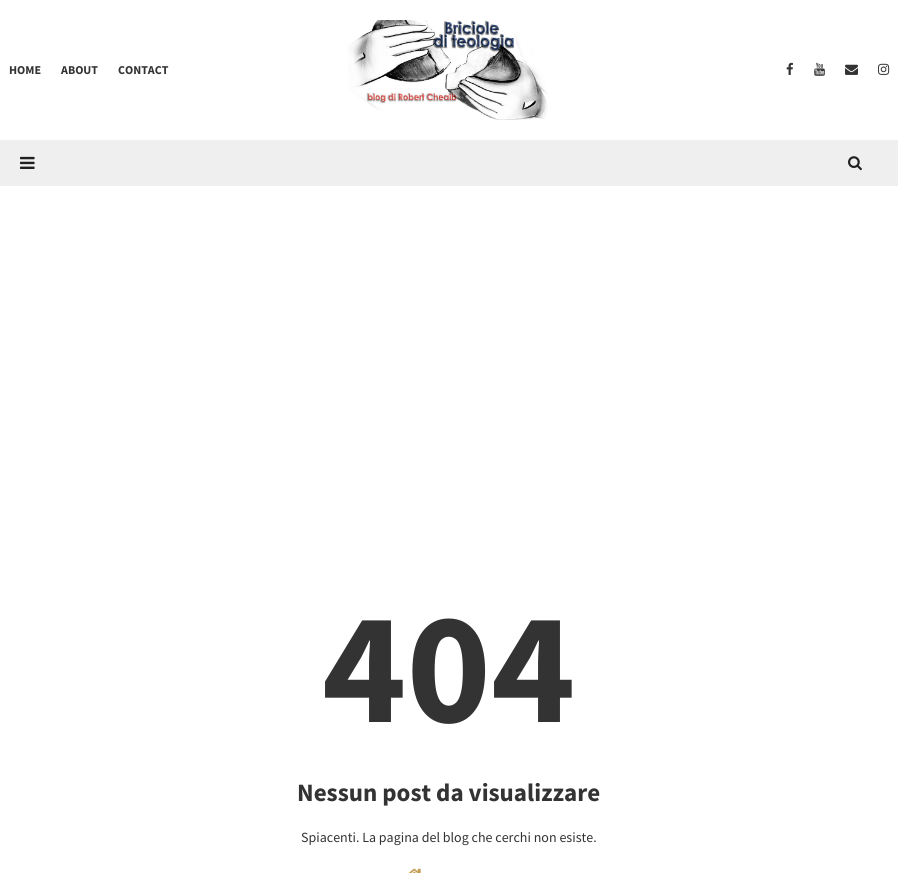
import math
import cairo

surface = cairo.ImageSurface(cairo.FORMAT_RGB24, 898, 873)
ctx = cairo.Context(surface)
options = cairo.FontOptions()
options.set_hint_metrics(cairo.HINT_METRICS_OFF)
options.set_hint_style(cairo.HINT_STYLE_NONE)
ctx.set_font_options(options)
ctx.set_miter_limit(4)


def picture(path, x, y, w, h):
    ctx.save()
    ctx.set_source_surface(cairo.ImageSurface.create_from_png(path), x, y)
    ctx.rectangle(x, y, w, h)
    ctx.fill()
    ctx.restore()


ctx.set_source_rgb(1, 1, 1)
ctx.paint()
ctx.select_font_face("Source Sans Pro", cairo.FONT_SLANT_NORMAL, cairo.FONT_WEIGHT_BOLD)
ctx.set_font_size(12)
ctx.set_source_rgb(0.2, 0.2, 0.2)
ctx.move_to(9, 74)
ctx.show_text("HOME")
ctx.move_to(61, 74)
ctx.show_text("ABOUT")
ctx.move_to(118, 74)
ctx.show_text("CONTACT")
picture("img1.png", 348, 20, 200, 100)
picture("img2.png", 786, 62, 7, 13)
picture("img3.png", 814, 62, 11, 14)
picture("img4.png", 845, 64, 13, 11)
picture("img5.png", 878, 63, 12, 12)
ctx.set_source_rgb(0.937, 0.937, 0.937)
ctx.rectangle(0, 140, 898, 46)
ctx.fill()
picture("img6.png", 20, 156, 15, 13)
picture("img7.png", 848, 156, 14, 15)
ctx.set_font_size(160)
ctx.set_source_rgb(0.2, 0.2, 0.2)
ctx.move_to(322, 722)
ctx.show_text("404")
ctx.set_font_size(25)
ctx.move_to(297, 801)
ctx.show_text("Nessun post da visualizzare")
ctx.select_font_face("Source Sans Pro")
ctx.set_font_size(14)
ctx.move_to(301, 842)
ctx.show_text("Spiacenti. La pagina del blog che cerchi non esiste.")
picture("img8.png", 408, 868, 13, 5)
surface.write_to_png("page.png")
